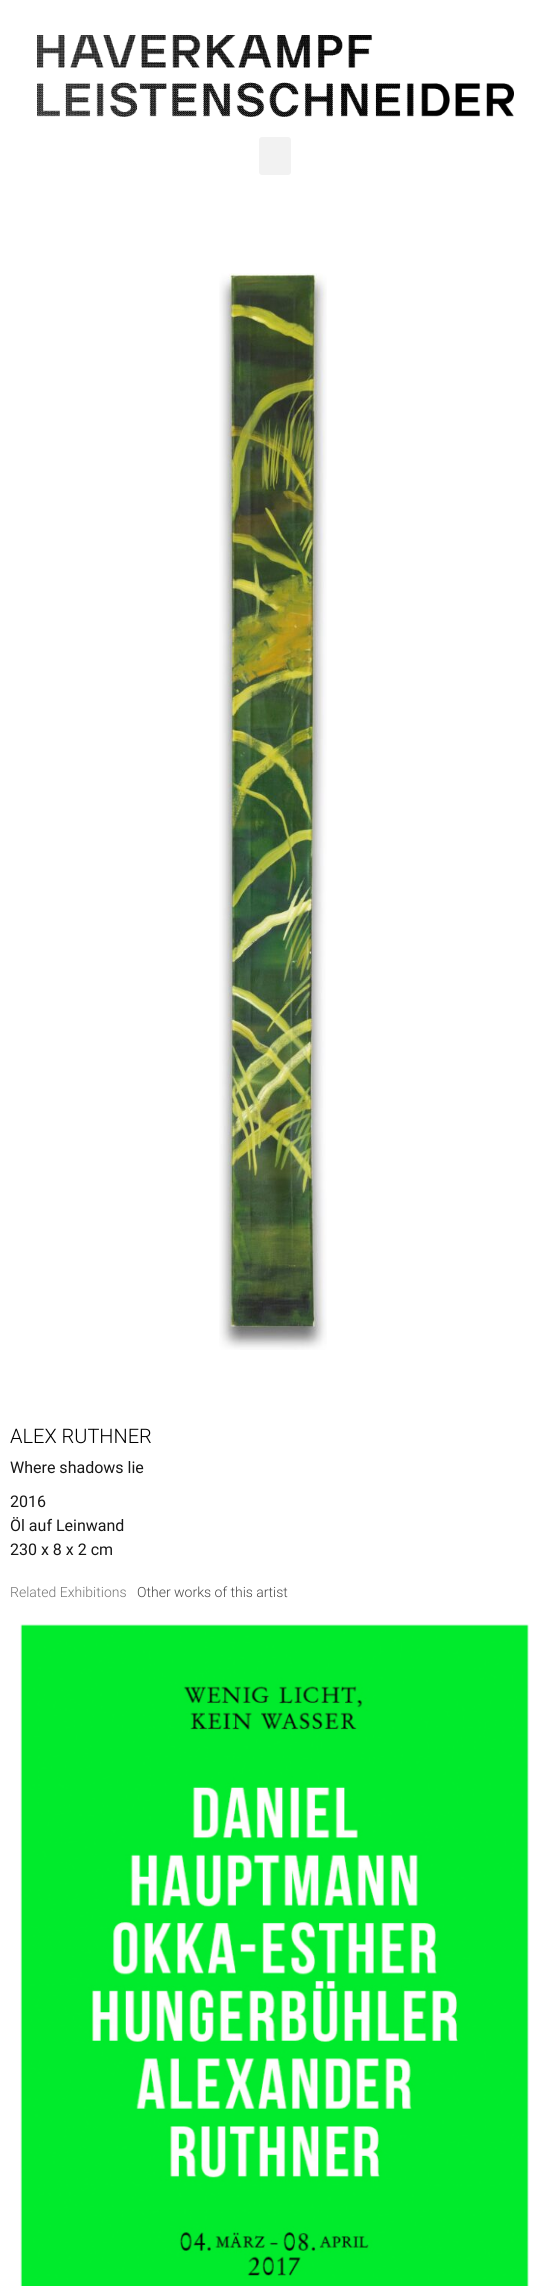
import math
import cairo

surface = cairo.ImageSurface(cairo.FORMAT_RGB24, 550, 2286)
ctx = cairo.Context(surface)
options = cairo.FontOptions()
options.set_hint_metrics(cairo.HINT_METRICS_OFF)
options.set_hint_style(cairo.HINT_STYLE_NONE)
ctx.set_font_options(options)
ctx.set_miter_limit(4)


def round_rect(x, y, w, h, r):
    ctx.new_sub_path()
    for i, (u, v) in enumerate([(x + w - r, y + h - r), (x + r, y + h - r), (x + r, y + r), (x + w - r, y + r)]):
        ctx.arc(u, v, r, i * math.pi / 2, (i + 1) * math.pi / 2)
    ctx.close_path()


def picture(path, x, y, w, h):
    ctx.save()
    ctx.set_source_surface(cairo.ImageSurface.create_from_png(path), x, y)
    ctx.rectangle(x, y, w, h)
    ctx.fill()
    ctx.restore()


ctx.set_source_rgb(1, 1, 1)
ctx.paint()
picture("img1.png", 37, 35, 477, 82)
ctx.set_source_rgb(0.949, 0.949, 0.949)
round_rect(259, 137, 32, 38, 3)
ctx.fill()
picture("img2.png", 219, 273, 108, 1077)
ctx.select_font_face("Roboto Light")
ctx.set_font_size(20)
ctx.set_source_rgb(0, 0, 0)
ctx.move_to(10, 1443)
ctx.show_text("ALEX RUTHNER")
ctx.select_font_face("Roboto")
ctx.set_font_size(16)
ctx.set_source_rgb(0.094, 0.094, 0.094)
ctx.move_to(10, 1473)
ctx.show_text("Where shadows lie")
ctx.move_to(10, 1507)
ctx.show_text("2016")
ctx.move_to(10, 1531)
ctx.show_text("Öl auf Leinwand")
ctx.move_to(10, 1555)
ctx.show_text("230 x 8 x 2 cm")
ctx.select_font_face("Roboto Light")
ctx.set_font_size(14)
ctx.set_source_rgb(0.459, 0.459, 0.459)
ctx.move_to(10, 1597)
ctx.show_text("Related Exhibitions")
ctx.set_source_rgb(0.278, 0.278, 0.278)
ctx.move_to(137, 1597)
ctx.show_text("Other works of this artist")
picture("img3.png", 20, 1624, 509, 662)
surface.write_to_png("page.png")
